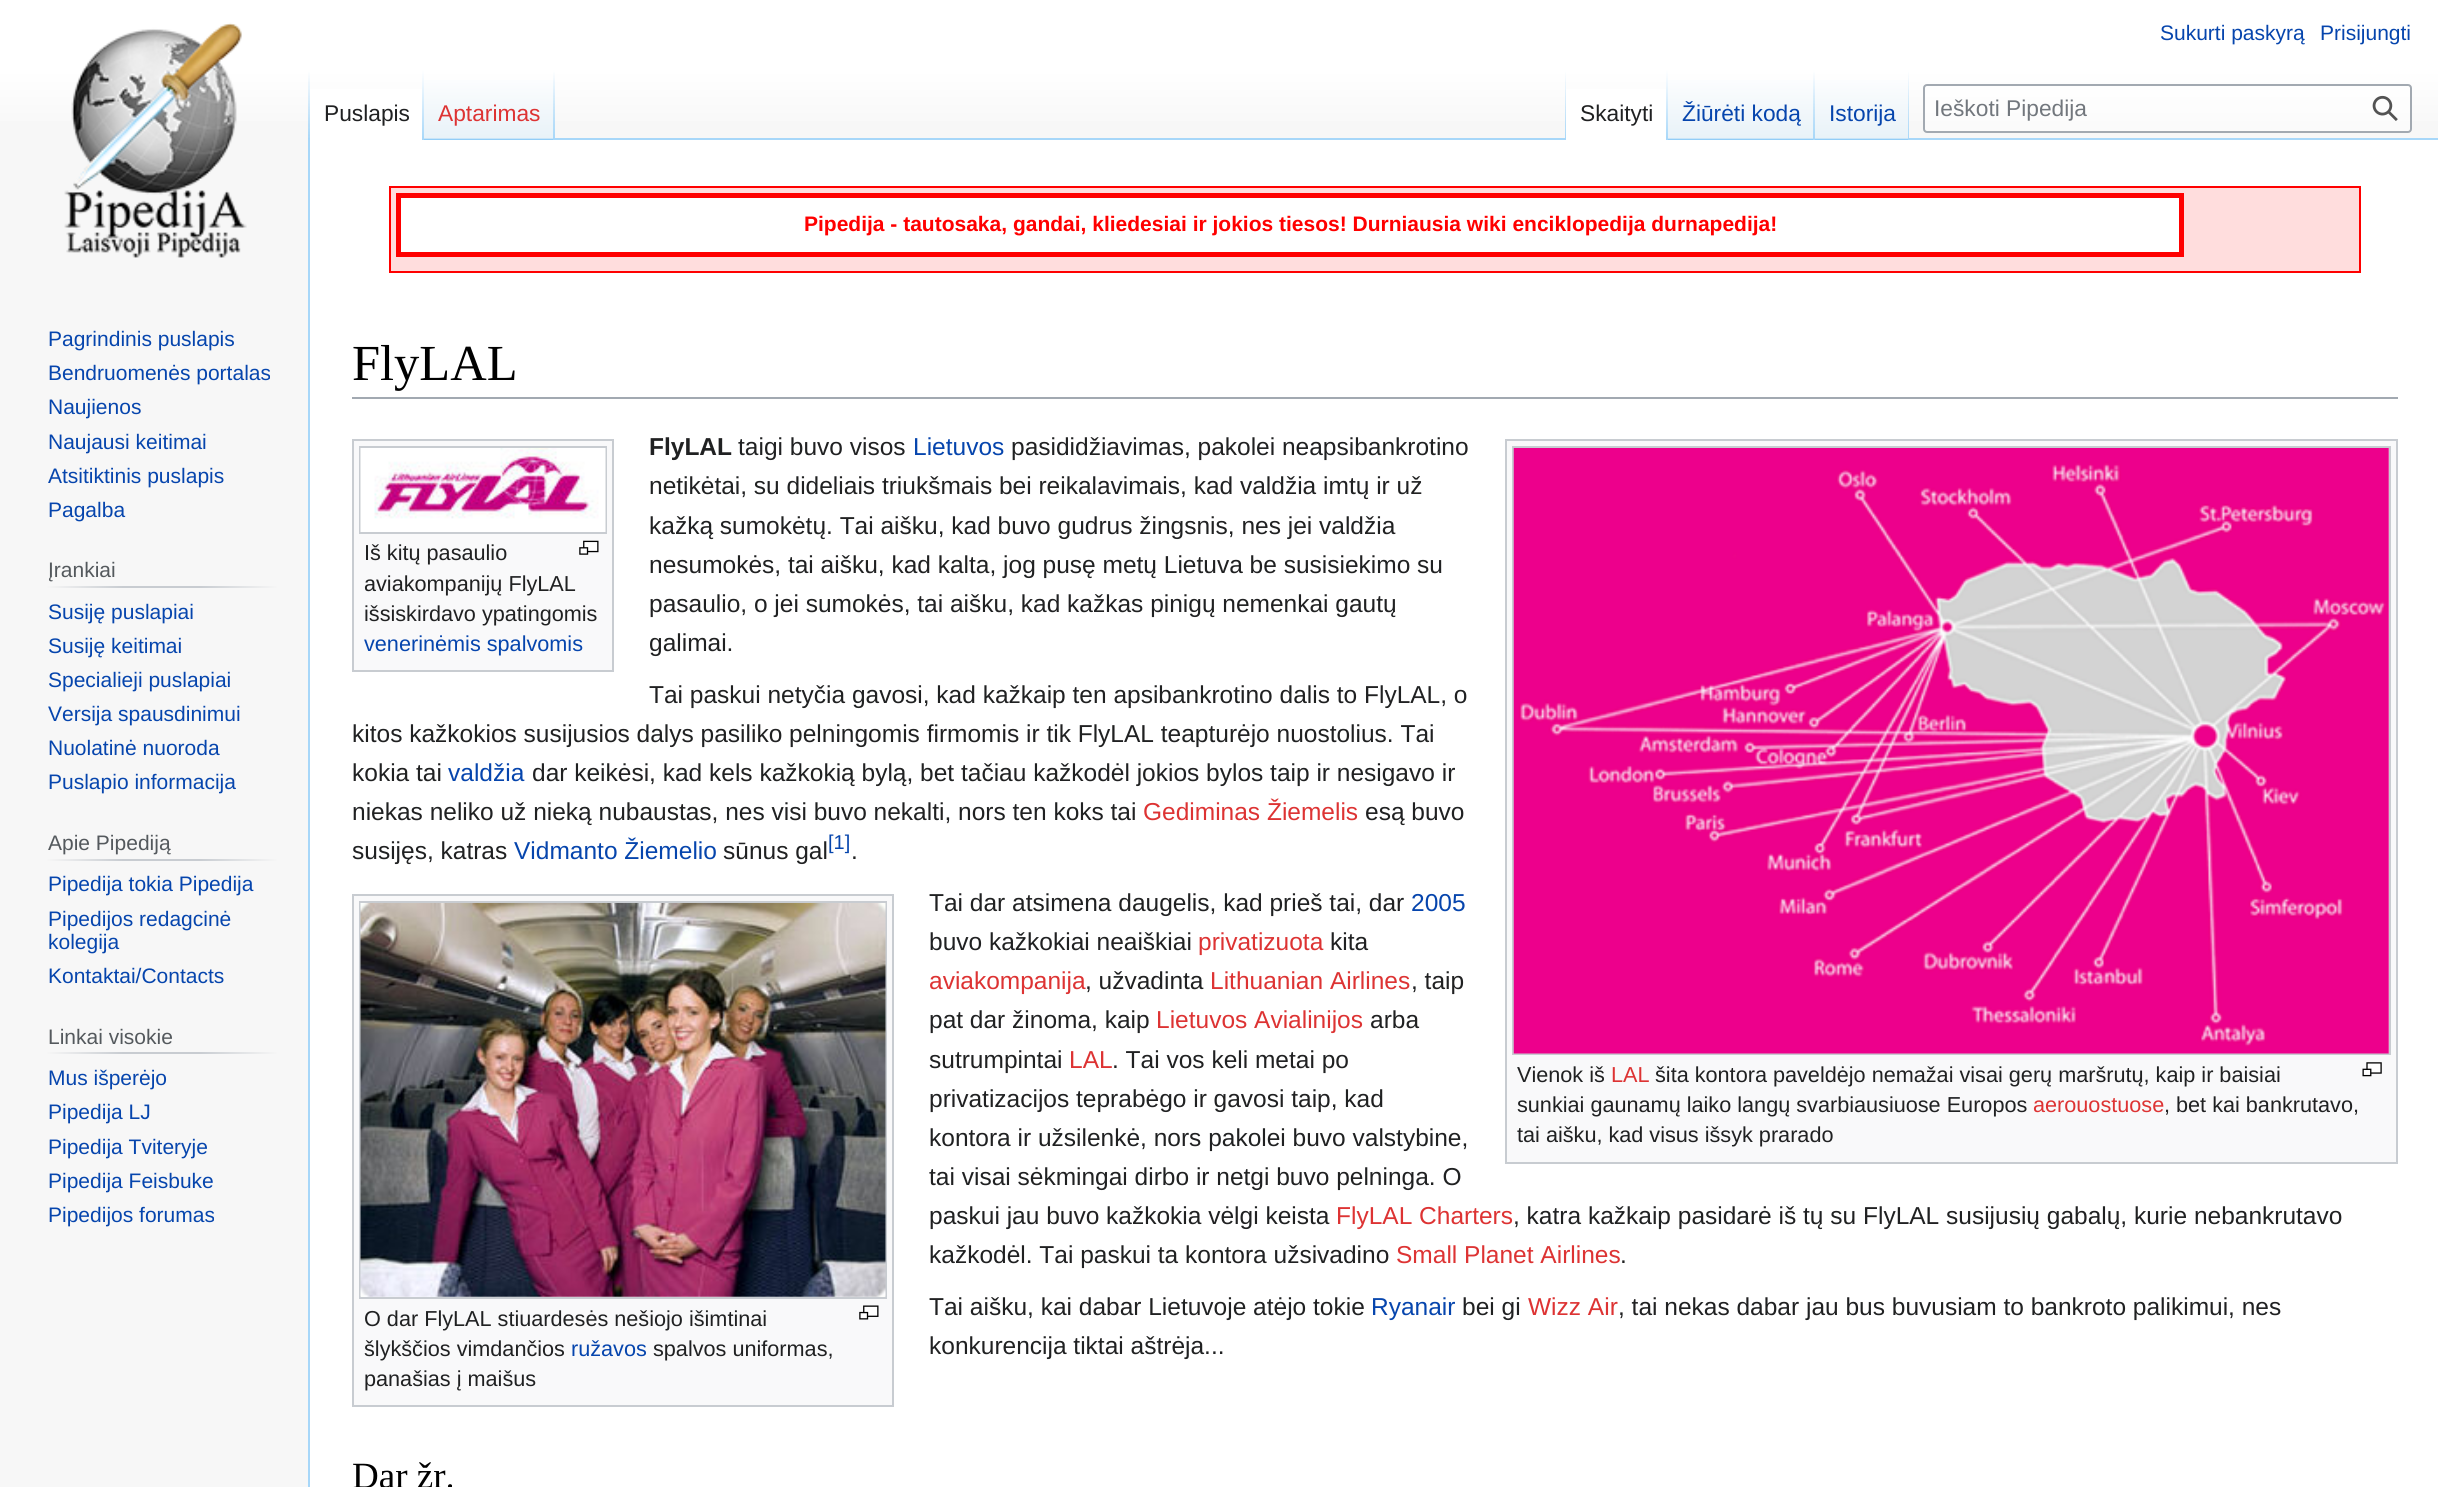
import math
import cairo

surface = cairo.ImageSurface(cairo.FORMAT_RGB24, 2438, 1487)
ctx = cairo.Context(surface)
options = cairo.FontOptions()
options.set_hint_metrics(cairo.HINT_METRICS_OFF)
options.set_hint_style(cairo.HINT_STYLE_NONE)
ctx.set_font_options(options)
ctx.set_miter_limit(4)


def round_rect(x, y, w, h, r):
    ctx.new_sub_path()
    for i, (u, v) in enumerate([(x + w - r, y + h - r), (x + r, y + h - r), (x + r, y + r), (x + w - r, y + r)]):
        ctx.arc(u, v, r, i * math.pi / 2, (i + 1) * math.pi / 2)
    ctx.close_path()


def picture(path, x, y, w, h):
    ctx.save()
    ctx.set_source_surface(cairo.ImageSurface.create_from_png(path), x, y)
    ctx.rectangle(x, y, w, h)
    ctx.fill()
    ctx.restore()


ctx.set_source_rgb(0.965, 0.965, 0.965)
ctx.paint()
gradient = cairo.LinearGradient(1220, 0, 1220, 140)
gradient.add_color_stop_rgba(0.5, 1, 1, 1, 1)
gradient.add_color_stop_rgba(1, 0.965, 0.965, 0.965, 1)
ctx.set_source(gradient)
ctx.rectangle(0, 0, 2438, 121)
ctx.fill()
ctx.select_font_face("Liberation Sans")
ctx.set_font_size(21)
ctx.set_source_rgb(0.024, 0.271, 0.678)
ctx.move_to(2160, 40)
ctx.show_text("Sukurti paskyrą")
ctx.move_to(2320, 40)
ctx.show_text("Prisijungti")
ctx.set_source_rgb(0.655, 0.843, 0.976)
ctx.rectangle(308, 138, 2, 1349)
ctx.fill()
gradient = cairo.LinearGradient(309, 70, 309, 140)
gradient.add_color_stop_rgba(0, 0.655, 0.843, 0.976, 0)
gradient.add_color_stop_rgba(1, 0.655, 0.843, 0.976, 1)
ctx.set_source(gradient)
ctx.rectangle(308, 70, 2, 70)
ctx.fill()
ctx.set_source_rgb(1, 1, 1)
ctx.rectangle(310, 89, 112, 51)
ctx.fill()
gradient = cairo.LinearGradient(423, 70, 423, 140)
gradient.add_color_stop_rgba(0, 1, 1, 1, 1)
gradient.add_color_stop_rgba(1, 0.655, 0.843, 0.976, 1)
ctx.set_source(gradient)
ctx.rectangle(422, 70, 2, 70)
ctx.fill()
ctx.set_font_size(22.75)
ctx.set_source_rgb(0.125, 0.129, 0.133)
ctx.move_to(324, 121)
ctx.show_text("Puslapis")
gradient = cairo.LinearGradient(489, 140, 489, 70)
gradient.add_color_stop_rgba(0, 0.467, 0.757, 0.965, 1)
gradient.add_color_stop_rgba(0.03, 0.91, 0.949, 0.973, 1)
gradient.add_color_stop_rgba(1, 1, 1, 1, 1)
ctx.set_source(gradient)
ctx.rectangle(424, 80, 131, 60)
ctx.fill()
gradient = cairo.LinearGradient(554, 70, 554, 140)
gradient.add_color_stop_rgba(0, 0.655, 0.843, 0.976, 0)
gradient.add_color_stop_rgba(1, 0.655, 0.843, 0.976, 1)
ctx.set_source(gradient)
ctx.rectangle(553, 70, 2, 70)
ctx.fill()
ctx.set_source_rgb(0.867, 0.2, 0.2)
ctx.move_to(438, 121)
ctx.show_text("Aptarimas")
ctx.set_source_rgb(0.655, 0.843, 0.976)
ctx.rectangle(555, 138, 1883, 2)
ctx.fill()
gradient = cairo.LinearGradient(1565, 70, 1565, 140)
gradient.add_color_stop_rgba(0, 0.655, 0.843, 0.976, 0)
gradient.add_color_stop_rgba(1, 0.655, 0.843, 0.976, 1)
ctx.set_source(gradient)
ctx.rectangle(1565, 70, 1, 70)
ctx.fill()
ctx.set_source_rgb(1, 1, 1)
ctx.rectangle(1566, 89, 100, 51)
ctx.fill()
gradient = cairo.LinearGradient(1667, 70, 1667, 140)
gradient.add_color_stop_rgba(0, 1, 1, 1, 1)
gradient.add_color_stop_rgba(1, 0.655, 0.843, 0.976, 1)
ctx.set_source(gradient)
ctx.rectangle(1666, 70, 2, 70)
ctx.fill()
ctx.set_source_rgb(0.125, 0.129, 0.133)
ctx.move_to(1580, 121)
ctx.show_text("Skaityti")
gradient = cairo.LinearGradient(1741, 140, 1741, 70)
gradient.add_color_stop_rgba(0, 0.467, 0.757, 0.965, 1)
gradient.add_color_stop_rgba(0.03, 0.91, 0.949, 0.973, 1)
gradient.add_color_stop_rgba(1, 1, 1, 1, 1)
ctx.set_source(gradient)
ctx.rectangle(1668, 80, 147, 60)
ctx.fill()
gradient = cairo.LinearGradient(1814, 70, 1814, 140)
gradient.add_color_stop_rgba(0, 0.655, 0.843, 0.976, 0)
gradient.add_color_stop_rgba(1, 0.655, 0.843, 0.976, 1)
ctx.set_source(gradient)
ctx.rectangle(1813, 70, 2, 70)
ctx.fill()
ctx.set_source_rgb(0.024, 0.271, 0.678)
ctx.move_to(1682, 121)
ctx.show_text("Žiūrėti kodą")
gradient = cairo.LinearGradient(1862, 140, 1862, 70)
gradient.add_color_stop_rgba(0, 0.467, 0.757, 0.965, 1)
gradient.add_color_stop_rgba(0.03, 0.91, 0.949, 0.973, 1)
gradient.add_color_stop_rgba(1, 1, 1, 1, 1)
ctx.set_source(gradient)
ctx.rectangle(1815, 80, 94, 60)
ctx.fill()
gradient = cairo.LinearGradient(1908, 70, 1908, 140)
gradient.add_color_stop_rgba(0, 0.655, 0.843, 0.976, 0)
gradient.add_color_stop_rgba(1, 0.655, 0.843, 0.976, 1)
ctx.set_source(gradient)
ctx.rectangle(1908, 70, 1, 70)
ctx.fill()
ctx.set_source_rgb(0.024, 0.271, 0.678)
ctx.move_to(1829, 121)
ctx.show_text("Istorija")
ctx.set_source_rgba(1, 1, 1, 0.5)
round_rect(1924, 85, 487, 47, 3)
ctx.fill_preserve()
ctx.set_source_rgb(0.635, 0.663, 0.694)
ctx.stroke()
ctx.set_source_rgb(0.447, 0.467, 0.49)
ctx.move_to(1934, 116)
ctx.show_text("Ieškoti Pipedija")
picture("img1.png", 2372, 95, 26, 26)
picture("img2.png", 64, 22, 183, 236)
ctx.set_font_size(21)
ctx.set_source_rgb(0.024, 0.271, 0.678)
ctx.move_to(48, 346)
ctx.show_text("Pagrindinis puslapis")
ctx.move_to(48, 380)
ctx.show_text("Bendruomenės portalas")
ctx.move_to(48, 414)
ctx.show_text("Naujienos")
ctx.move_to(48, 449)
ctx.show_text("Naujausi keitimai")
ctx.move_to(48, 483)
ctx.show_text("Atsitiktinis puslapis")
ctx.move_to(48, 517)
ctx.show_text("Pagalba")
gradient = cairo.LinearGradient(47, 587, 277, 587)
gradient.add_color_stop_rgba(0, 0.965, 0.965, 0.965, 1)
gradient.add_color_stop_rgba(0.33, 0.784, 0.8, 0.82, 1)
gradient.add_color_stop_rgba(0.66, 0.784, 0.8, 0.82, 1)
gradient.add_color_stop_rgba(1, 0.965, 0.965, 0.965, 1)
ctx.set_source(gradient)
ctx.rectangle(47, 586, 230, 2)
ctx.fill()
ctx.set_source_rgb(0.329, 0.349, 0.365)
ctx.move_to(48, 577)
ctx.show_text("Įrankiai")
ctx.set_source_rgb(0.024, 0.271, 0.678)
ctx.move_to(48, 619)
ctx.show_text("Susiję puslapiai")
ctx.move_to(48, 653)
ctx.show_text("Susiję keitimai")
ctx.move_to(48, 687)
ctx.show_text("Specialieji puslapiai")
ctx.move_to(48, 721)
ctx.show_text("Versija spausdinimui")
ctx.move_to(48, 755)
ctx.show_text("Nuolatinė nuoroda")
ctx.move_to(48, 789)
ctx.show_text("Puslapio informacija")
gradient = cairo.LinearGradient(47, 860, 277, 860)
gradient.add_color_stop_rgba(0, 0.965, 0.965, 0.965, 1)
gradient.add_color_stop_rgba(0.33, 0.784, 0.8, 0.82, 1)
gradient.add_color_stop_rgba(0.66, 0.784, 0.8, 0.82, 1)
gradient.add_color_stop_rgba(1, 0.965, 0.965, 0.965, 1)
ctx.set_source(gradient)
ctx.rectangle(47, 859, 230, 2)
ctx.fill()
ctx.set_source_rgb(0.329, 0.349, 0.365)
ctx.move_to(48, 850)
ctx.show_text("Apie Pipediją")
ctx.set_source_rgb(0.024, 0.271, 0.678)
ctx.move_to(48, 891)
ctx.show_text("Pipedija tokia Pipedija")
ctx.move_to(48, 926)
ctx.show_text("Pipedijos redagcinė")
ctx.move_to(48, 949)
ctx.show_text("kolegija")
ctx.move_to(48, 983)
ctx.show_text("Kontaktai/Contacts")
gradient = cairo.LinearGradient(47, 1053, 277, 1053)
gradient.add_color_stop_rgba(0, 0.965, 0.965, 0.965, 1)
gradient.add_color_stop_rgba(0.33, 0.784, 0.8, 0.82, 1)
gradient.add_color_stop_rgba(0.66, 0.784, 0.8, 0.82, 1)
gradient.add_color_stop_rgba(1, 0.965, 0.965, 0.965, 1)
ctx.set_source(gradient)
ctx.rectangle(47, 1052, 230, 2)
ctx.fill()
ctx.set_source_rgb(0.329, 0.349, 0.365)
ctx.move_to(48, 1044)
ctx.show_text("Linkai visokie")
ctx.set_source_rgb(0.024, 0.271, 0.678)
ctx.move_to(48, 1085)
ctx.show_text("Mus išperėjo")
ctx.move_to(48, 1119)
ctx.show_text("Pipedija LJ")
ctx.move_to(48, 1154)
ctx.show_text("Pipedija Tviteryje")
ctx.move_to(48, 1188)
ctx.show_text("Pipedija Feisbuke")
ctx.move_to(48, 1222)
ctx.show_text("Pipedijos forumas")
ctx.set_source_rgb(1, 1, 1)
ctx.rectangle(310, 140, 2128, 1347)
ctx.fill()
ctx.set_source_rgb(1, 0.867, 0.867)
ctx.rectangle(390, 187, 1970, 85)
ctx.fill_preserve()
ctx.set_source_rgb(1, 0, 0)
ctx.stroke()
ctx.set_source_rgb(1, 1, 1)
ctx.rectangle(398.5, 195.5, 1783, 59)
ctx.fill_preserve()
ctx.set_source_rgb(1, 0, 0)
ctx.set_line_width(5)
ctx.stroke()
ctx.select_font_face("Liberation Sans", cairo.FONT_SLANT_NORMAL, cairo.FONT_WEIGHT_BOLD)
ctx.move_to(804, 231)
ctx.show_text("Pipedija - tautosaka, gandai, kliedesiai ir jokios tiesos! Durniausia wiki enciklopedija durnapedija!")
ctx.set_source_rgb(0.635, 0.663, 0.694)
ctx.rectangle(352, 397, 2046, 2)
ctx.fill()
ctx.select_font_face("Liberation Serif")
ctx.set_font_size(50.5)
ctx.set_source_rgb(0, 0, 0)
ctx.move_to(352, 380)
ctx.show_text("FlyLAL")
ctx.set_source_rgb(0.973, 0.976, 0.98)
ctx.rectangle(353, 440, 260, 231)
ctx.fill_preserve()
ctx.set_source_rgb(0.784, 0.8, 0.82)
ctx.set_line_width(2)
ctx.stroke()
ctx.rectangle(360, 447, 246, 86)
ctx.stroke()
picture("img3.png", 360, 448, 246, 84)
ctx.select_font_face("Liberation Sans")
ctx.set_font_size(21.65)
ctx.set_source_rgb(0.125, 0.129, 0.133)
ctx.move_to(364, 560)
ctx.show_text("Iš kitų pasaulio")
picture("img4.png", 579, 540, 20, 15)
ctx.move_to(364, 591)
ctx.show_text("aviakompanijų FlyLAL")
ctx.move_to(364, 621)
ctx.show_text("išsiskirdavo ypatingomis")
ctx.set_source_rgb(0.024, 0.271, 0.678)
ctx.move_to(364, 651)
ctx.show_text("venerinėmis spalvomis")
ctx.select_font_face("Liberation Sans", cairo.FONT_SLANT_NORMAL, cairo.FONT_WEIGHT_BOLD)
ctx.set_font_size(24.5)
ctx.set_source_rgb(0.125, 0.129, 0.133)
ctx.move_to(649, 455)
ctx.show_text("FlyLAL")
ctx.select_font_face("Liberation Sans")
ctx.move_to(738, 455)
ctx.show_text("taigi buvo visos")
ctx.set_source_rgb(0.024, 0.271, 0.678)
ctx.move_to(913, 455)
ctx.show_text("Lietuvos")
ctx.set_source_rgb(0.125, 0.129, 0.133)
ctx.move_to(1011, 455)
ctx.show_text("pasididžiavimas, pakolei neapsibankrotino")
ctx.move_to(649, 494)
ctx.show_text("netikėtai, su dideliais triukšmais bei reikalavimais, kad valdžia imtų ir už")
ctx.move_to(649, 534)
ctx.show_text("kažką sumokėtų. Tai aišku, kad buvo gudrus žingsnis, nes jei valdžia")
ctx.move_to(649, 573)
ctx.show_text("nesumokės, tai aišku, kad kalta, jog pusę metų Lietuva be susisiekimo su")
ctx.move_to(649, 612)
ctx.show_text("pasaulio, o jei sumokės, tai aišku, kad kažkas pinigų nemenkai gautų")
ctx.move_to(649, 651)
ctx.show_text("galimai.")
ctx.move_to(649, 703)
ctx.show_text("Tai paskui netyčia gavosi, kad kažkaip ten apsibankrotino dalis to FlyLAL, o")
ctx.move_to(352, 742)
ctx.show_text("kitos kažkokios susijusios dalys pasiliko pelningomis firmomis ir tik FlyLAL teapturėjo nuostolius. Tai")
ctx.move_to(352, 781)
ctx.show_text("kokia tai")
ctx.set_source_rgb(0.024, 0.271, 0.678)
ctx.move_to(448, 781)
ctx.show_text("valdžia")
ctx.set_source_rgb(0.125, 0.129, 0.133)
ctx.move_to(532, 781)
ctx.show_text("dar keikėsi, kad kels kažkokią bylą, bet tačiau kažkodėl jokios bylos taip ir nesigavo ir")
ctx.move_to(352, 820)
ctx.show_text("niekas neliko už nieką nubaustas, nes visi buvo nekalti, nors ten koks tai")
ctx.set_source_rgb(0.867, 0.2, 0.2)
ctx.move_to(1143, 820)
ctx.show_text("Gediminas Žiemelis")
ctx.set_source_rgb(0.125, 0.129, 0.133)
ctx.move_to(1365, 820)
ctx.show_text("esą buvo")
ctx.move_to(352, 859)
ctx.show_text("susijęs, katras")
ctx.set_source_rgb(0.024, 0.271, 0.678)
ctx.move_to(514, 859)
ctx.show_text("Vidmanto Žiemelio")
ctx.set_source_rgb(0.125, 0.129, 0.133)
ctx.move_to(723, 859)
ctx.show_text("sūnus gal")
ctx.set_font_size(20)
ctx.set_source_rgb(0.024, 0.271, 0.678)
ctx.move_to(828, 849)
ctx.show_text("[1]")
ctx.set_font_size(24.5)
ctx.set_source_rgb(0.125, 0.129, 0.133)
ctx.move_to(851, 859)
ctx.show_text(".")
ctx.move_to(929, 911)
ctx.show_text("Tai dar atsimena daugelis, kad prieš tai, dar")
ctx.set_source_rgb(0.024, 0.271, 0.678)
ctx.move_to(1411, 911)
ctx.show_text("2005")
ctx.set_source_rgb(0.125, 0.129, 0.133)
ctx.move_to(929, 950)
ctx.show_text("buvo kažkokiai neaiškiai")
ctx.set_source_rgb(0.867, 0.2, 0.2)
ctx.move_to(1198, 950)
ctx.show_text("privatizuota")
ctx.set_source_rgb(0.125, 0.129, 0.133)
ctx.move_to(1330, 950)
ctx.show_text("kita")
ctx.set_source_rgb(0.867, 0.2, 0.2)
ctx.move_to(929, 989)
ctx.show_text("aviakompanija")
ctx.set_source_rgb(0.125, 0.129, 0.133)
ctx.move_to(1085, 989)
ctx.show_text(", užvadinta")
ctx.set_source_rgb(0.867, 0.2, 0.2)
ctx.move_to(1210, 989)
ctx.show_text("Lithuanian Airlines")
ctx.set_source_rgb(0.125, 0.129, 0.133)
ctx.move_to(1411, 989)
ctx.show_text(", taip")
ctx.move_to(929, 1028)
ctx.show_text("pat dar žinoma, kaip")
ctx.set_source_rgb(0.867, 0.2, 0.2)
ctx.move_to(1156, 1028)
ctx.show_text("Lietuvos Avialinijos")
ctx.set_source_rgb(0.125, 0.129, 0.133)
ctx.move_to(1370, 1028)
ctx.show_text("arba")
ctx.move_to(929, 1068)
ctx.show_text("sutrumpintai")
ctx.set_source_rgb(0.867, 0.2, 0.2)
ctx.move_to(1069, 1068)
ctx.show_text("LAL")
ctx.set_source_rgb(0.125, 0.129, 0.133)
ctx.move_to(1112, 1068)
ctx.show_text(". Tai vos keli metai po")
ctx.move_to(929, 1107)
ctx.show_text("privatizacijos teprabėgo ir gavosi taip, kad")
ctx.move_to(929, 1146)
ctx.show_text("kontora ir užsilenkė, nors pakolei buvo valstybine,")
ctx.move_to(929, 1185)
ctx.show_text("tai visai sėkmingai dirbo ir netgi buvo pelninga. O")
ctx.move_to(929, 1224)
ctx.show_text("paskui jau buvo kažkokia vėlgi keista")
ctx.set_source_rgb(0.867, 0.2, 0.2)
ctx.move_to(1336, 1224)
ctx.show_text("FlyLAL Charters")
ctx.set_source_rgb(0.125, 0.129, 0.133)
ctx.move_to(1513, 1224)
ctx.show_text(", katra kažkaip pasidarė iš tų su FlyLAL susijusių gabalų, kurie nebankrutavo")
ctx.move_to(929, 1263)
ctx.show_text("kažkodėl. Tai paskui ta kontora užsivadino")
ctx.set_source_rgb(0.867, 0.2, 0.2)
ctx.move_to(1396, 1263)
ctx.show_text("Small Planet Airlines")
ctx.set_source_rgb(0.125, 0.129, 0.133)
ctx.move_to(1620, 1263)
ctx.show_text(".")
ctx.set_source_rgb(0.973, 0.976, 0.98)
ctx.rectangle(1506, 440, 891, 723)
ctx.fill_preserve()
ctx.set_source_rgb(0.784, 0.8, 0.82)
ctx.stroke()
ctx.rectangle(1513, 447, 877, 607)
ctx.stroke()
picture("img5.png", 1513, 448, 876, 606)
ctx.set_font_size(21.65)
ctx.set_source_rgb(0.125, 0.129, 0.133)
ctx.move_to(1517, 1082)
ctx.show_text("Vienok iš")
ctx.set_source_rgb(0.867, 0.2, 0.2)
ctx.move_to(1611, 1082)
ctx.show_text("LAL")
ctx.set_source_rgb(0.125, 0.129, 0.133)
ctx.move_to(1655, 1082)
ctx.show_text("šita kontora paveldėjo nemažai visai gerų maršrutų, kaip ir baisiai")
picture("img6.png", 2362, 1062, 20, 15)
ctx.move_to(1517, 1112)
ctx.show_text("sunkiai gaunamų laiko langų svarbiausiuose Europos")
ctx.set_source_rgb(0.867, 0.2, 0.2)
ctx.move_to(2033, 1112)
ctx.show_text("aerouostuose")
ctx.set_source_rgb(0.125, 0.129, 0.133)
ctx.move_to(2164, 1112)
ctx.show_text(", bet kai bankrutavo,")
ctx.move_to(1517, 1142)
ctx.show_text("tai aišku, kad visus išsyk prarado")
ctx.set_source_rgb(0.973, 0.976, 0.98)
ctx.rectangle(353, 895, 540, 511)
ctx.fill_preserve()
ctx.set_source_rgb(0.784, 0.8, 0.82)
ctx.stroke()
ctx.rectangle(360, 902, 526, 396)
ctx.stroke()
picture("img7.png", 360, 903, 526, 394)
ctx.set_source_rgb(0.125, 0.129, 0.133)
ctx.move_to(364, 1326)
ctx.show_text("O dar FlyLAL stiuardesės nešiojo išimtinai")
picture("img8.png", 859, 1305, 20, 15)
ctx.move_to(364, 1356)
ctx.show_text("šlykščios vimdančios")
ctx.set_source_rgb(0.024, 0.271, 0.678)
ctx.move_to(571, 1356)
ctx.show_text("ružavos")
ctx.set_source_rgb(0.125, 0.129, 0.133)
ctx.move_to(653, 1356)
ctx.show_text("spalvos uniformas,")
ctx.move_to(364, 1386)
ctx.show_text("panašias į maišus")
ctx.set_font_size(24.5)
ctx.move_to(929, 1315)
ctx.show_text("Tai aišku, kai dabar Lietuvoje atėjo tokie")
ctx.set_source_rgb(0.024, 0.271, 0.678)
ctx.move_to(1371, 1315)
ctx.show_text("Ryanair")
ctx.set_source_rgb(0.125, 0.129, 0.133)
ctx.move_to(1462, 1315)
ctx.show_text("bei gi")
ctx.set_source_rgb(0.867, 0.2, 0.2)
ctx.move_to(1528, 1315)
ctx.show_text("Wizz Air")
ctx.set_source_rgb(0.125, 0.129, 0.133)
ctx.move_to(1618, 1315)
ctx.show_text(", tai nekas dabar jau bus buvusiam to bankroto palikimui, nes")
ctx.move_to(929, 1354)
ctx.show_text("konkurencija tiktai aštrėja...")
ctx.select_font_face("Liberation Serif")
ctx.set_font_size(37)
ctx.set_source_rgb(0, 0, 0)
ctx.move_to(352, 1488)
ctx.show_text("Dar žr.")
surface.write_to_png("page.png")
